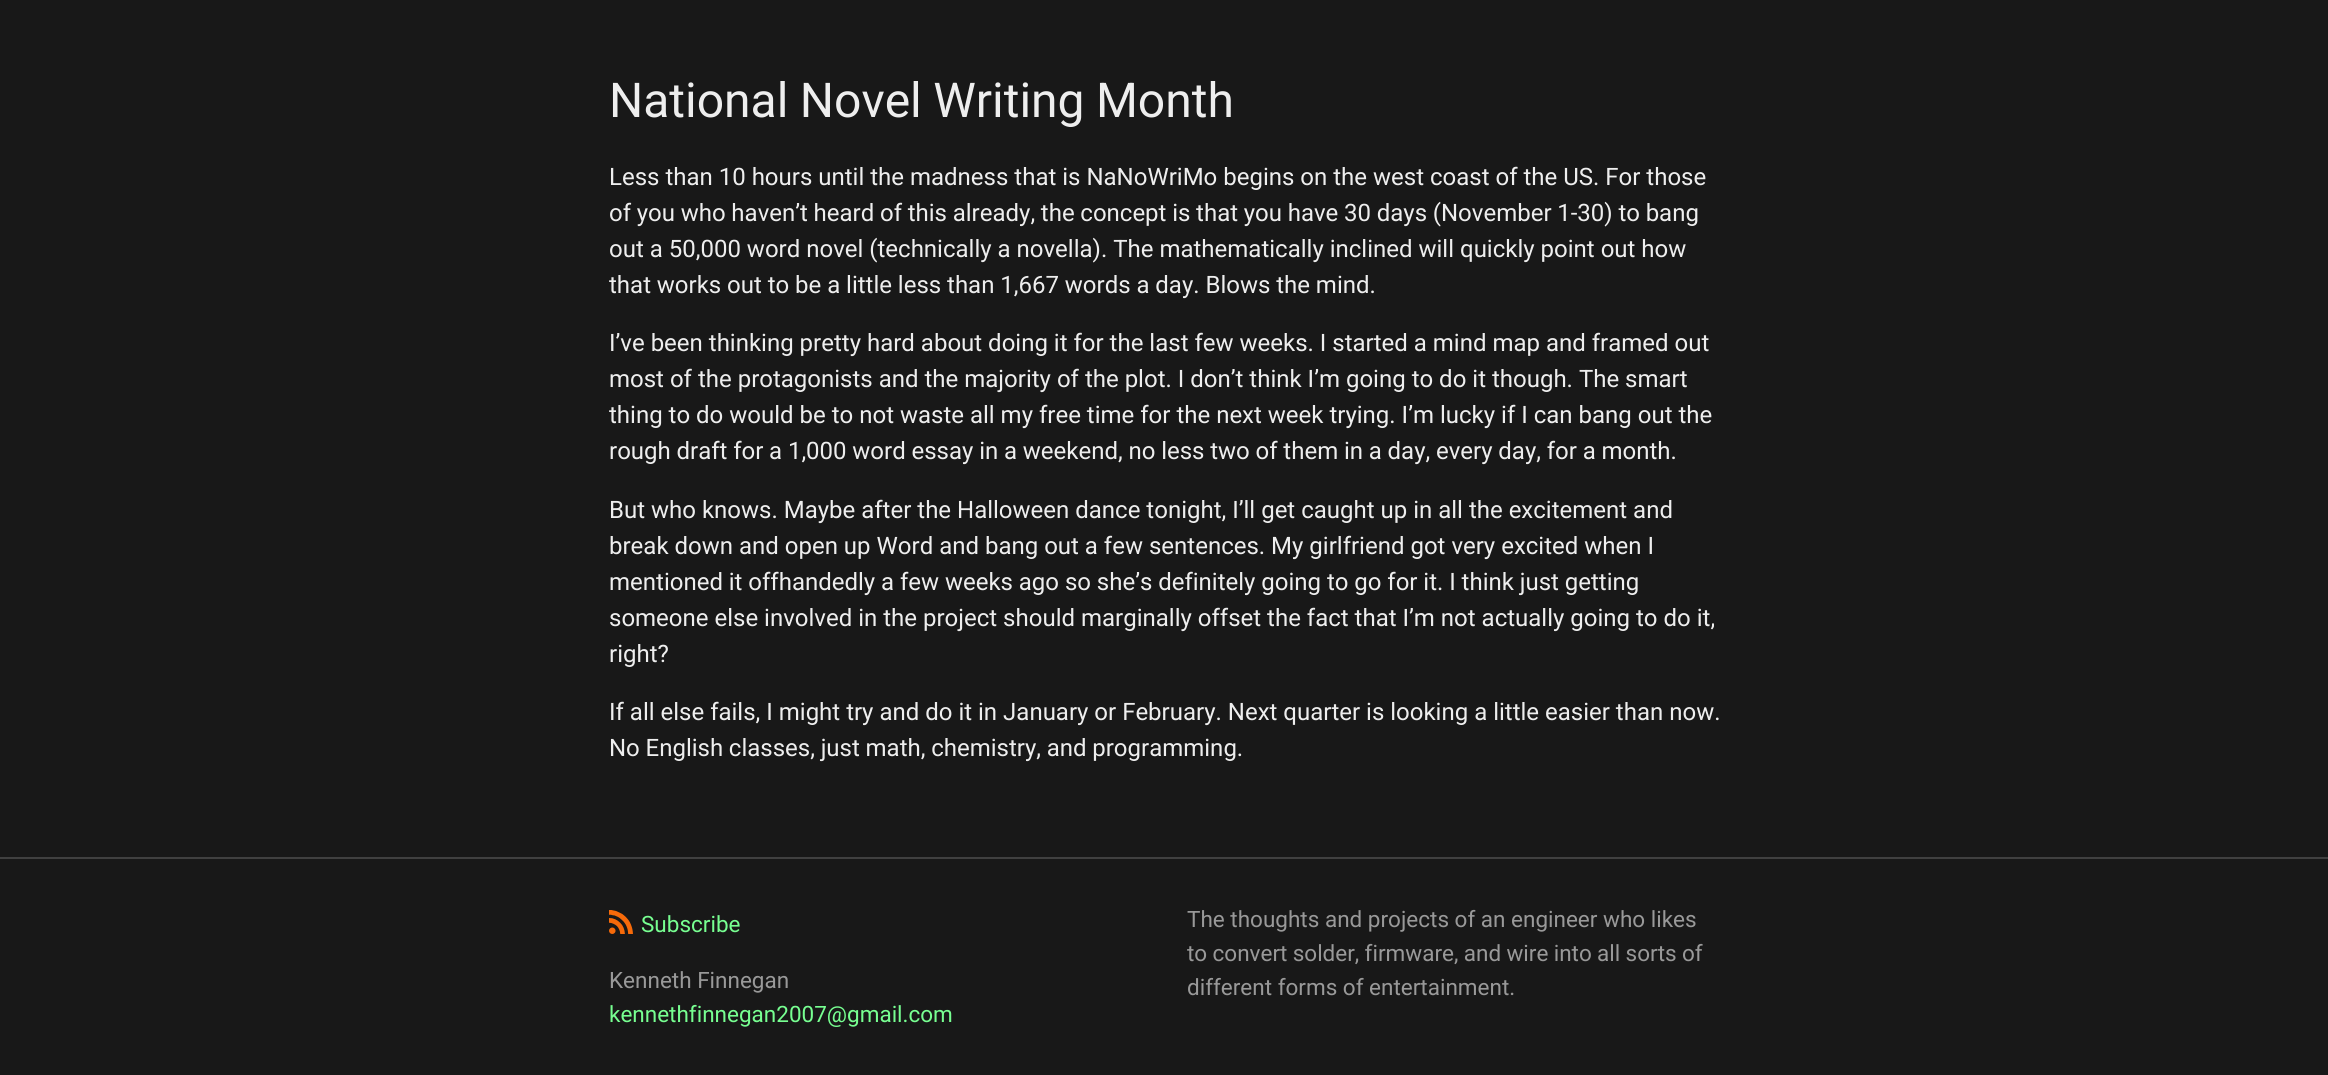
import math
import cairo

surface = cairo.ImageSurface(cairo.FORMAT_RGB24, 2328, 1075)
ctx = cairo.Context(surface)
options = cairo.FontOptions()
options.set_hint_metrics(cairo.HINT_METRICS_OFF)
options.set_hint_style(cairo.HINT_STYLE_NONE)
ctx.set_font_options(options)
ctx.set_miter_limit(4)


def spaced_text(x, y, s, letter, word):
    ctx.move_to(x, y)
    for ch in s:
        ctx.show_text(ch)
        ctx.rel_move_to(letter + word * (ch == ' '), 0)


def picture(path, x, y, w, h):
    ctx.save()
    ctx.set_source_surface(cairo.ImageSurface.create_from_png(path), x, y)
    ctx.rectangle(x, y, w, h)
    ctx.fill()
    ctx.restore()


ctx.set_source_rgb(0.094, 0.094, 0.094)
ctx.paint()
ctx.select_font_face("Roboto")
ctx.set_font_size(48)
ctx.set_source_rgb(0.933, 0.933, 0.933)
spaced_text(609, 117, "National Novel Writing Month", 0, -0.5)
ctx.set_font_size(24)
ctx.move_to(609, 185)
ctx.show_text("Less than 10 hours until the madness that is NaNoWriMo begins on the west coast of the US. For those")
spaced_text(609, 221, "of you who haven’t heard of this already, the concept is that you have 30 days (November 1-30) to bang", 0, -0.25)
ctx.move_to(609, 257)
ctx.show_text("out a 50,000 word novel (technically a novella). The mathematically inclined will quickly point out how")
spaced_text(609, 293, "that works out to be a little less than 1,667 words a day. Blows the mind.", 0, -0.1)
ctx.move_to(609, 351)
ctx.show_text("I’ve been thinking pretty hard about doing it for the last few weeks. I started a mind map and framed out")
ctx.move_to(609, 387)
ctx.show_text("most of the protagonists and the majority of the plot. I don’t think I’m going to do it though. The smart")
ctx.move_to(609, 423)
ctx.show_text("thing to do would be to not waste all my free time for the next week trying. I’m lucky if I can bang out the")
spaced_text(609, 459, "rough draft for a 1,000 word essay in a weekend, no less two of them in a day, every day, for a month.", 0, -0.2)
ctx.move_to(609, 518)
ctx.show_text("But who knows. Maybe after the Halloween dance tonight, I’ll get caught up in all the excitement and")
ctx.move_to(609, 554)
ctx.show_text("break down and open up Word and bang out a few sentences. My girlfriend got very excited when I")
spaced_text(609, 590, "mentioned it offhandedly a few weeks ago so she’s definitely going to go for it. I think just getting", 0, -0.1)
ctx.move_to(609, 626)
ctx.show_text("someone else involved in the project should marginally offset the fact that I’m not actually going to do it,")
ctx.move_to(609, 662)
ctx.show_text("right?")
ctx.move_to(609, 720)
ctx.show_text("If all else fails, I might try and do it in January or February. Next quarter is looking a little easier than now.")
spaced_text(609, 756, "No English classes, just math, chemistry, and programming.", 0, -0.25)
ctx.set_source_rgb(0.251, 0.251, 0.251)
ctx.rectangle(0, 857, 2328, 2)
ctx.fill()
picture("img1.png", 609, 910, 24, 24)
ctx.set_font_size(22.5)
ctx.set_source_rgb(0.467, 1, 0.569)
ctx.move_to(641, 932)
ctx.show_text("Subscribe")
ctx.set_source_rgb(0.6, 0.6, 0.6)
ctx.move_to(609, 988)
ctx.show_text("Kenneth Finnegan")
ctx.set_source_rgb(0.467, 1, 0.569)
ctx.move_to(609, 1022)
ctx.show_text("kennethfinnegan2007@gmail.com")
ctx.set_source_rgb(0.6, 0.6, 0.6)
ctx.move_to(1187, 927)
ctx.show_text("The thoughts and projects of an engineer who likes")
spaced_text(1187, 961, "to convert solder, firmware, and wire into all sorts of", 0, -0.25)
ctx.move_to(1187, 995)
ctx.show_text("different forms of entertainment.")
surface.write_to_png("page.png")
